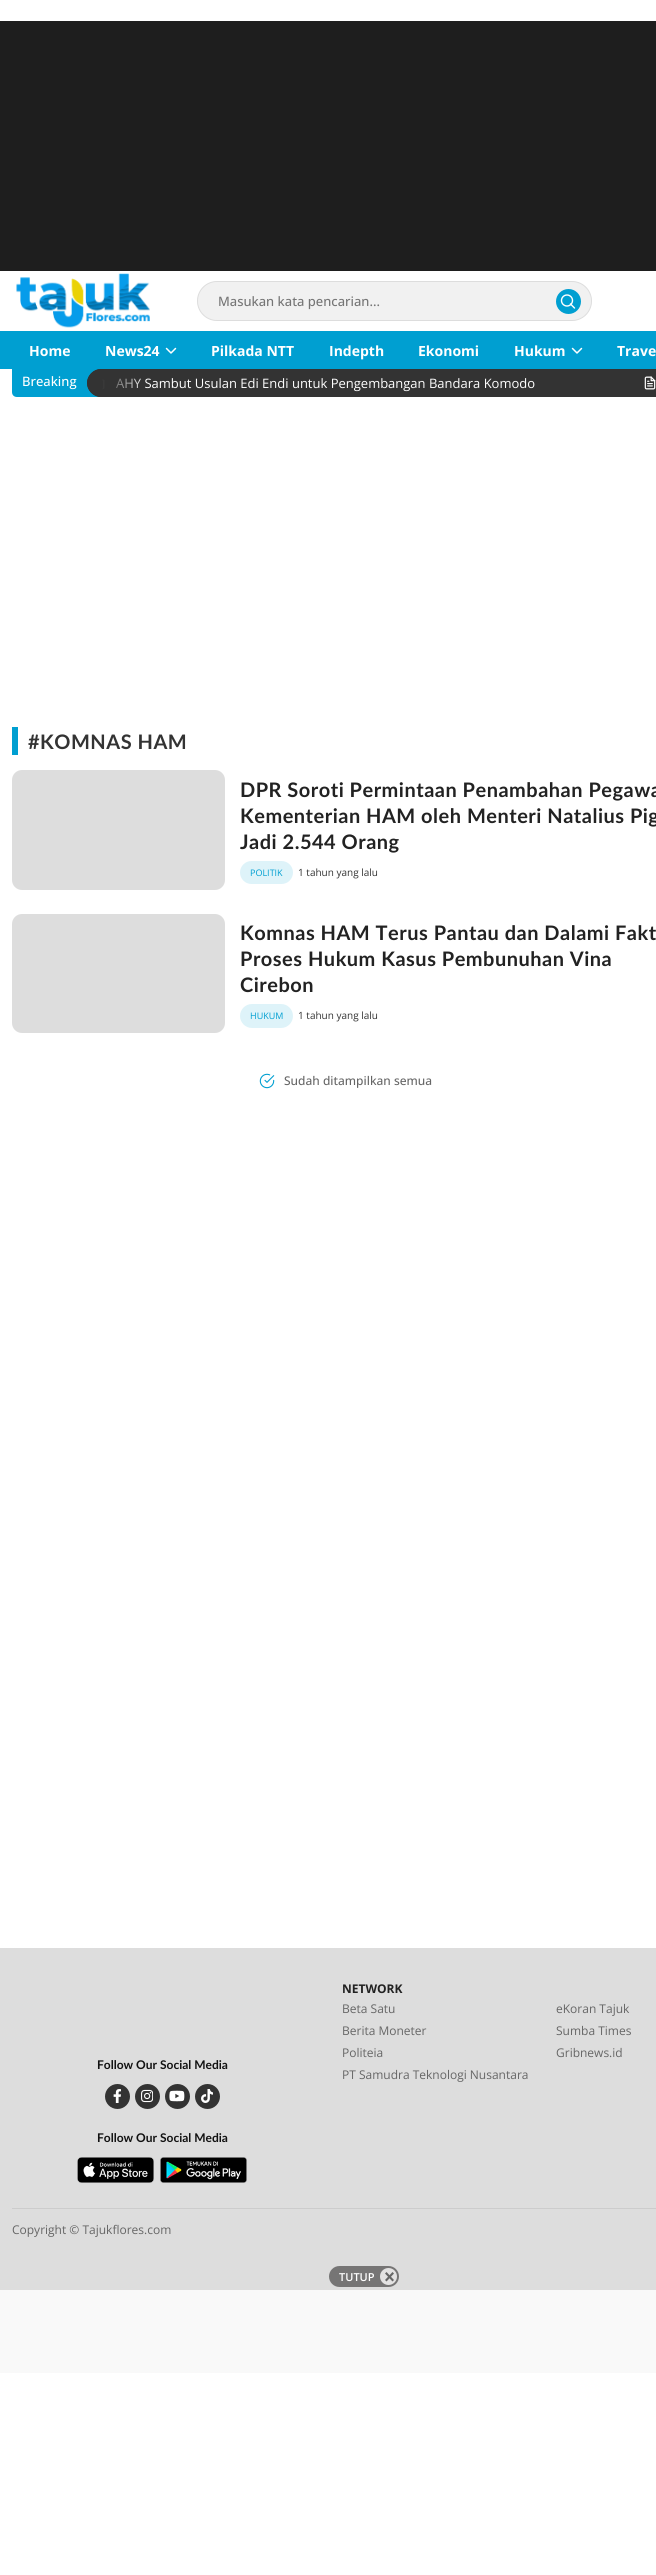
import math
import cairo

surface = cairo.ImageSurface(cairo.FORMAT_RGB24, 656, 2575)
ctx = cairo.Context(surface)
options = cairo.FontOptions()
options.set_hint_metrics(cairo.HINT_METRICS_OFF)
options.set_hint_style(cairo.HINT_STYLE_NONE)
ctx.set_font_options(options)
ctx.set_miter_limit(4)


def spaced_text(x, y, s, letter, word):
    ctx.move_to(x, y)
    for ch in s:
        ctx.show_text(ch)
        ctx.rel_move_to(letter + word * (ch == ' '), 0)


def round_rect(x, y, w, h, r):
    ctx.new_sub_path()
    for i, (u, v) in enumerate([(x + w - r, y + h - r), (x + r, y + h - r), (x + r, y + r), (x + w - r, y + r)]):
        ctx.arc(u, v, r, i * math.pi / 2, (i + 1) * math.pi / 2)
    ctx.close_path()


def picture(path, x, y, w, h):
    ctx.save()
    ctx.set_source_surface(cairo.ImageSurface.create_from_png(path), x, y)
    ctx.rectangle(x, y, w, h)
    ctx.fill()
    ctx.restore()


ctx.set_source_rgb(1, 1, 1)
ctx.paint()
ctx.set_source_rgb(0.118, 0.118, 0.118)
ctx.rectangle(0, 21, 656, 250)
ctx.fill()
picture("img1.png", 16, 273, 134, 55)
ctx.set_source_rgb(0.945, 0.945, 0.945)
round_rect(197.5, 281.5, 394, 39, 19.5)
ctx.fill_preserve()
ctx.set_source_rgb(0.867, 0.867, 0.867)
ctx.set_line_width(1)
ctx.stroke()
ctx.select_font_face("Open Sans Medium")
ctx.set_font_size(13)
ctx.set_source_rgb(0.459, 0.459, 0.459)
ctx.move_to(218, 306)
ctx.show_text("Masukan kata pencarian...")
ctx.set_source_rgb(0, 0.624, 0.82)
ctx.new_path()
ctx.arc(568.5, 301.5, 12.5, 0, 2 * math.pi)
ctx.fill()
ctx.arc(567, 300.5, 5.5, 0, 2 * math.pi)
ctx.set_source_rgb(1, 1, 1)
ctx.set_line_width(1.4)
ctx.stroke()
ctx.new_path()
ctx.move_to(574.5, 308)
ctx.line_to(570.5, 304)
ctx.set_line_cap(cairo.LINE_CAP_ROUND)
ctx.set_line_join(cairo.LINE_JOIN_ROUND)
ctx.stroke()
ctx.set_source_rgb(0, 0.624, 0.82)
ctx.rectangle(0, 331, 656, 38)
ctx.fill()
ctx.select_font_face("Open Sans", cairo.FONT_SLANT_NORMAL, cairo.FONT_WEIGHT_BOLD)
ctx.set_font_size(14)
ctx.set_source_rgb(1, 1, 1)
ctx.move_to(29, 356)
ctx.show_text("Home")
ctx.move_to(105, 356)
ctx.show_text("News24")
picture("img2.png", 165, 347, 12, 7)
ctx.move_to(211, 356)
ctx.show_text("Pilkada NTT")
ctx.move_to(329, 356)
ctx.show_text("Indepth")
ctx.move_to(418, 356)
ctx.show_text("Ekonomi")
ctx.move_to(514, 356)
ctx.show_text("Hukum")
picture("img2.png", 571, 347, 12, 7)
ctx.move_to(617, 356)
ctx.show_text("Trave")
ctx.set_source_rgb(0, 0.624, 0.82)
ctx.new_path()
ctx.move_to(12, 369)
ctx.line_to(107, 369)
ctx.line_to(107, 397)
ctx.line_to(17, 397)
ctx.curve_to(14, 397, 12, 395, 12, 392)
ctx.close_path()
ctx.fill()
ctx.select_font_face("Open Sans Medium")
ctx.set_font_size(13)
ctx.set_source_rgb(1, 1, 1)
ctx.move_to(22, 386)
ctx.show_text("Breaking")
ctx.set_source_rgb(0.2, 0.2, 0.2)
ctx.new_path()
ctx.move_to(101, 369)
ctx.line_to(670, 369)
ctx.line_to(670, 392)
ctx.curve_to(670, 395, 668, 397, 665, 397)
ctx.line_to(101, 397)
ctx.curve_to(93.5, 397, 87, 390.5, 87, 383)
ctx.curve_to(87, 375.5, 93.5, 369, 101, 369)
ctx.close_path()
ctx.fill()
picture("img3.png", 102, 378, 3, 12)
ctx.select_font_face("Open Sans")
ctx.set_source_rgb(1, 1, 1)
ctx.move_to(116, 388)
ctx.show_text("AHY Sambut Usulan Edi Endi untuk Pengembangan Bandara Komodo")
gradient = cairo.LinearGradient(87, 383, 147, 383)
gradient.add_color_stop_rgba(0.25, 0.2, 0.2, 0.2, 1)
gradient.add_color_stop_rgba(1, 0.2, 0.2, 0.2, 0)
ctx.set_source(gradient)
ctx.new_path()
ctx.move_to(101, 369)
ctx.line_to(147, 369)
ctx.line_to(147, 397)
ctx.line_to(101, 397)
ctx.curve_to(93.5, 397, 87, 390.5, 87, 383)
ctx.curve_to(87, 375.5, 93.5, 369, 101, 369)
ctx.close_path()
ctx.fill()
picture("img4.png", 644, 376, 12, 14)
ctx.set_source_rgb(0, 0.624, 0.82)
ctx.rectangle(12, 727, 6, 28)
ctx.fill()
ctx.select_font_face("Lato", cairo.FONT_SLANT_NORMAL, cairo.FONT_WEIGHT_BOLD)
ctx.set_font_size(20)
ctx.set_source_rgb(0.2, 0.2, 0.2)
spaced_text(28, 749, "#KOMNAS HAM", 0.5, 0)
ctx.set_source_rgb(0.867, 0.867, 0.867)
round_rect(12, 770, 213, 120, 10)
ctx.fill()
ctx.set_source_rgb(0.133, 0.133, 0.133)
spaced_text(240, 797, "DPR Soroti Permintaan Penambahan Pegawa", 0.5, 0)
spaced_text(240, 823, "Kementerian HAM oleh Menteri Natalius Pig", 0.5, 0)
spaced_text(240, 849, "Jadi 2.544 Orang", 0.5, 0)
ctx.set_source_rgb(0.871, 0.953, 0.976)
round_rect(240, 861, 53, 23, 11.5)
ctx.fill()
ctx.select_font_face("Open Sans")
ctx.set_font_size(9)
ctx.set_source_rgb(0, 0.624, 0.82)
ctx.move_to(250, 876)
ctx.show_text("POLITIK")
ctx.set_font_size(10)
ctx.set_source_rgb(0.2, 0.2, 0.2)
ctx.move_to(298, 876)
ctx.show_text("1 tahun yang lalu")
ctx.set_source_rgb(0.867, 0.867, 0.867)
round_rect(12, 914, 213, 119, 10)
ctx.fill()
ctx.select_font_face("Lato", cairo.FONT_SLANT_NORMAL, cairo.FONT_WEIGHT_BOLD)
ctx.set_font_size(20)
ctx.set_source_rgb(0.133, 0.133, 0.133)
spaced_text(240, 940, "Komnas HAM Terus Pantau dan Dalami Fakt", 0.5, 0)
spaced_text(240, 966, "Proses Hukum Kasus Pembunuhan Vina", 0.5, 0)
spaced_text(240, 992, "Cirebon", 0.5, 0)
ctx.set_source_rgb(0.871, 0.953, 0.976)
round_rect(240, 1004, 53, 24, 12)
ctx.fill()
ctx.select_font_face("Open Sans")
ctx.set_font_size(9)
ctx.set_source_rgb(0, 0.624, 0.82)
ctx.move_to(250, 1019)
ctx.show_text("HUKUM")
ctx.set_font_size(10)
ctx.set_source_rgb(0.2, 0.2, 0.2)
ctx.move_to(298, 1019)
ctx.show_text("1 tahun yang lalu")
picture("img5.png", 259, 1073, 16, 16)
ctx.select_font_face("Open Sans Medium")
ctx.set_font_size(12)
ctx.set_source_rgb(0.4, 0.4, 0.4)
ctx.move_to(284, 1085)
ctx.show_text("Sudah ditampilkan semua")
ctx.set_source_rgb(0.867, 0.867, 0.867)
ctx.rectangle(0, 1948, 656, 342)
ctx.fill()
ctx.set_source_rgb(0.973, 0.973, 0.973)
ctx.rectangle(0, 2290, 656, 83)
ctx.fill()
ctx.select_font_face("Open Sans", cairo.FONT_SLANT_NORMAL, cairo.FONT_WEIGHT_BOLD)
ctx.set_source_rgb(0.133, 0.133, 0.133)
ctx.move_to(342, 1993)
ctx.show_text("NETWORK")
ctx.select_font_face("Open Sans")
ctx.set_source_rgb(0.4, 0.4, 0.4)
ctx.move_to(342, 2013)
ctx.show_text("Beta Satu")
ctx.move_to(556, 2013)
ctx.show_text("eKoran Tajuk")
ctx.move_to(342, 2035)
ctx.show_text("Berita Moneter")
ctx.move_to(556, 2035)
ctx.show_text("Sumba Times")
ctx.move_to(342, 2057)
ctx.show_text("Politeia")
ctx.move_to(556, 2057)
ctx.show_text("Gribnews.id")
ctx.move_to(342, 2079)
ctx.show_text("PT Samudra Teknologi Nusantara")
ctx.select_font_face("Lato", cairo.FONT_SLANT_NORMAL, cairo.FONT_WEIGHT_BOLD)
ctx.set_source_rgb(0.067, 0.067, 0.067)
ctx.move_to(97, 2069)
ctx.show_text("Follow Our Social Media")
ctx.set_source_rgb(0.2, 0.2, 0.2)
ctx.new_path()
ctx.arc(117.5, 2096.5, 12.5, 0, 2 * math.pi)
ctx.fill()
picture("img6.png", 113, 2089, 8, 14)
ctx.arc(147.5, 2096.5, 12.5, 0, 2 * math.pi)
ctx.fill()
picture("img7.png", 141, 2089, 12, 14)
ctx.arc(177.5, 2096.5, 12.5, 0, 2 * math.pi)
ctx.fill()
picture("img8.png", 169, 2090, 16, 12)
ctx.arc(207.5, 2096.5, 12.5, 0, 2 * math.pi)
ctx.fill()
picture("img9.png", 201, 2089, 12, 14)
ctx.set_source_rgb(0.067, 0.067, 0.067)
ctx.move_to(97, 2142)
ctx.show_text("Follow Our Social Media")
picture("img10.png", 77, 2157, 77, 26)
picture("img11.png", 160, 2157, 87, 26)
ctx.set_source_rgb(0.8, 0.8, 0.8)
ctx.rectangle(12, 2208, 644, 1)
ctx.fill()
ctx.select_font_face("Open Sans")
ctx.set_source_rgb(0.4, 0.4, 0.4)
ctx.move_to(12, 2234)
ctx.show_text("Copyright © Tajukflores.com")
ctx.set_source_rgb(0.463, 0.459, 0.459)
round_rect(329, 2266, 70, 21, 10.5)
ctx.fill()
ctx.select_font_face("Open Sans SemiBold")
ctx.set_font_size(11)
ctx.set_source_rgb(1, 1, 1)
ctx.move_to(339, 2281)
ctx.show_text("TUTUP")
ctx.set_source_rgb(0.89, 0.886, 0.886)
ctx.new_path()
ctx.arc(388.5, 2276.5, 8.5, 0, 2 * math.pi)
ctx.fill()
ctx.set_source_rgb(0.4, 0.4, 0.4)
ctx.new_path()
ctx.move_to(385, 2280)
ctx.line_to(392.5, 2272)
ctx.line_to(394, 2273.5)
ctx.line_to(386.5, 2281.5)
ctx.close_path()
ctx.fill()
ctx.new_path()
ctx.move_to(386.5, 2272)
ctx.line_to(394, 2280)
ctx.line_to(392.5, 2281.5)
ctx.line_to(385, 2273.5)
ctx.close_path()
ctx.fill()
surface.write_to_png("page.png")
